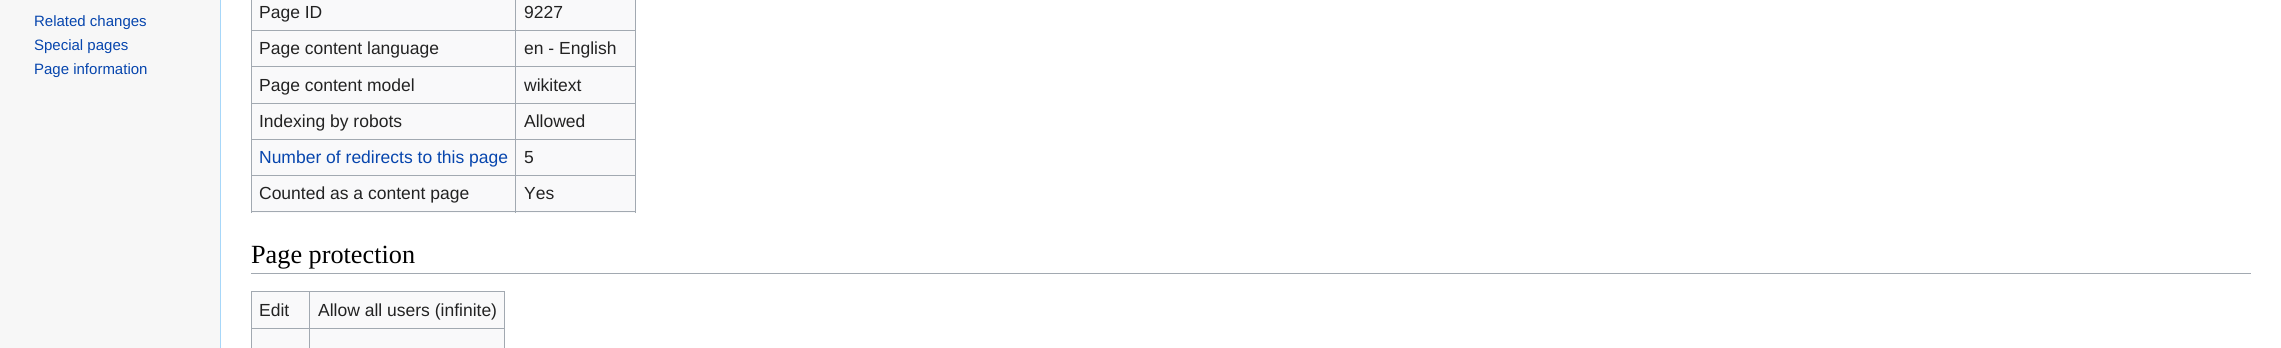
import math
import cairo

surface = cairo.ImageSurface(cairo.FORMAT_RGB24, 2281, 348)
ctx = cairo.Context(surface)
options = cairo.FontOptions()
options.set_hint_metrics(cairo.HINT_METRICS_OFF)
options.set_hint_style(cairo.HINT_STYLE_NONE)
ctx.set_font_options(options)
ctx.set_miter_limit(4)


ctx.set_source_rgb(0.965, 0.965, 0.965)
ctx.paint()
ctx.select_font_face("Liberation Sans")
ctx.set_font_size(15)
ctx.set_source_rgb(0.024, 0.271, 0.678)
ctx.move_to(34, 26)
ctx.show_text("Related changes")
ctx.move_to(34, 50)
ctx.show_text("Special pages")
ctx.move_to(34, 74)
ctx.show_text("Page information")
ctx.set_source_rgb(1, 1, 1)
ctx.rectangle(221, 0, 2060, 348)
ctx.fill()
ctx.set_source_rgb(0.655, 0.843, 0.976)
ctx.rectangle(220, 0, 1, 348)
ctx.fill()
ctx.set_source_rgb(0.973, 0.976, 0.98)
ctx.rectangle(252, 0, 383, 213)
ctx.fill()
ctx.set_source_rgb(0.635, 0.663, 0.694)
ctx.rectangle(635, 0, 1, 213)
ctx.fill()
ctx.rectangle(251, 211, 385, 1)
ctx.fill()
ctx.rectangle(251, 0, 1, 213)
ctx.fill()
ctx.set_font_size(17.5)
ctx.set_source_rgb(0.133, 0.133, 0.133)
ctx.move_to(259, 18)
ctx.show_text("Page ID")
ctx.set_source_rgb(0.635, 0.663, 0.694)
ctx.rectangle(515, 30, 121, 1)
ctx.fill()
ctx.rectangle(515, 66, 121, 1)
ctx.fill()
ctx.rectangle(515, 103, 121, 1)
ctx.fill()
ctx.rectangle(515, 139, 121, 1)
ctx.fill()
ctx.rectangle(515, 175, 121, 1)
ctx.fill()
ctx.rectangle(515, 175, 1, 38)
ctx.fill()
ctx.rectangle(251, 175, 265, 1)
ctx.fill()
ctx.rectangle(515, 139, 1, 37)
ctx.fill()
ctx.rectangle(251, 139, 265, 1)
ctx.fill()
ctx.rectangle(515, 103, 1, 37)
ctx.fill()
ctx.rectangle(251, 103, 265, 1)
ctx.fill()
ctx.rectangle(515, 66, 1, 38)
ctx.fill()
ctx.rectangle(251, 66, 265, 1)
ctx.fill()
ctx.rectangle(515, 30, 1, 38)
ctx.fill()
ctx.rectangle(251, 30, 265, 1)
ctx.fill()
ctx.rectangle(515, 0, 1, 31)
ctx.fill()
ctx.set_source_rgb(0.133, 0.133, 0.133)
ctx.move_to(524, 18)
ctx.show_text("9227")
ctx.move_to(259, 54)
ctx.show_text("Page content language")
ctx.move_to(524, 54)
ctx.show_text("en - English")
ctx.move_to(259, 91)
ctx.show_text("Page content model")
ctx.move_to(524, 91)
ctx.show_text("wikitext")
ctx.move_to(259, 127)
ctx.show_text("Indexing by robots")
ctx.move_to(524, 127)
ctx.show_text("Allowed")
ctx.set_source_rgb(0.024, 0.271, 0.678)
ctx.move_to(259, 163)
ctx.show_text("Number of redirects to this page")
ctx.set_source_rgb(0.133, 0.133, 0.133)
ctx.move_to(524, 163)
ctx.show_text("5")
ctx.move_to(259, 199)
ctx.show_text("Counted as a content page")
ctx.move_to(524, 199)
ctx.show_text("Yes")
ctx.set_source_rgb(0.635, 0.663, 0.694)
ctx.rectangle(251, 273, 2000, 1)
ctx.fill()
ctx.select_font_face("Liberation Serif")
ctx.set_font_size(26.25)
ctx.set_source_rgb(0, 0, 0)
ctx.move_to(251, 263)
ctx.show_text("Page protection")
ctx.set_source_rgb(0.973, 0.976, 0.98)
ctx.rectangle(252, 292, 252, 56)
ctx.fill()
ctx.set_source_rgb(0.635, 0.663, 0.694)
ctx.rectangle(251, 291, 254, 1)
ctx.fill()
ctx.rectangle(504, 291, 1, 57)
ctx.fill()
ctx.rectangle(251, 291, 1, 57)
ctx.fill()
ctx.select_font_face("Liberation Sans")
ctx.set_font_size(17.5)
ctx.set_source_rgb(0.133, 0.133, 0.133)
ctx.move_to(259, 316)
ctx.show_text("Edit")
ctx.set_source_rgb(0.635, 0.663, 0.694)
ctx.rectangle(309, 328, 196, 1)
ctx.fill()
ctx.rectangle(309, 328, 1, 20)
ctx.fill()
ctx.rectangle(251, 328, 59, 1)
ctx.fill()
ctx.rectangle(309, 291, 1, 38)
ctx.fill()
ctx.set_source_rgb(0.133, 0.133, 0.133)
ctx.move_to(318, 316)
ctx.show_text("Allow all users (infinite)")
surface.write_to_png("page.png")
